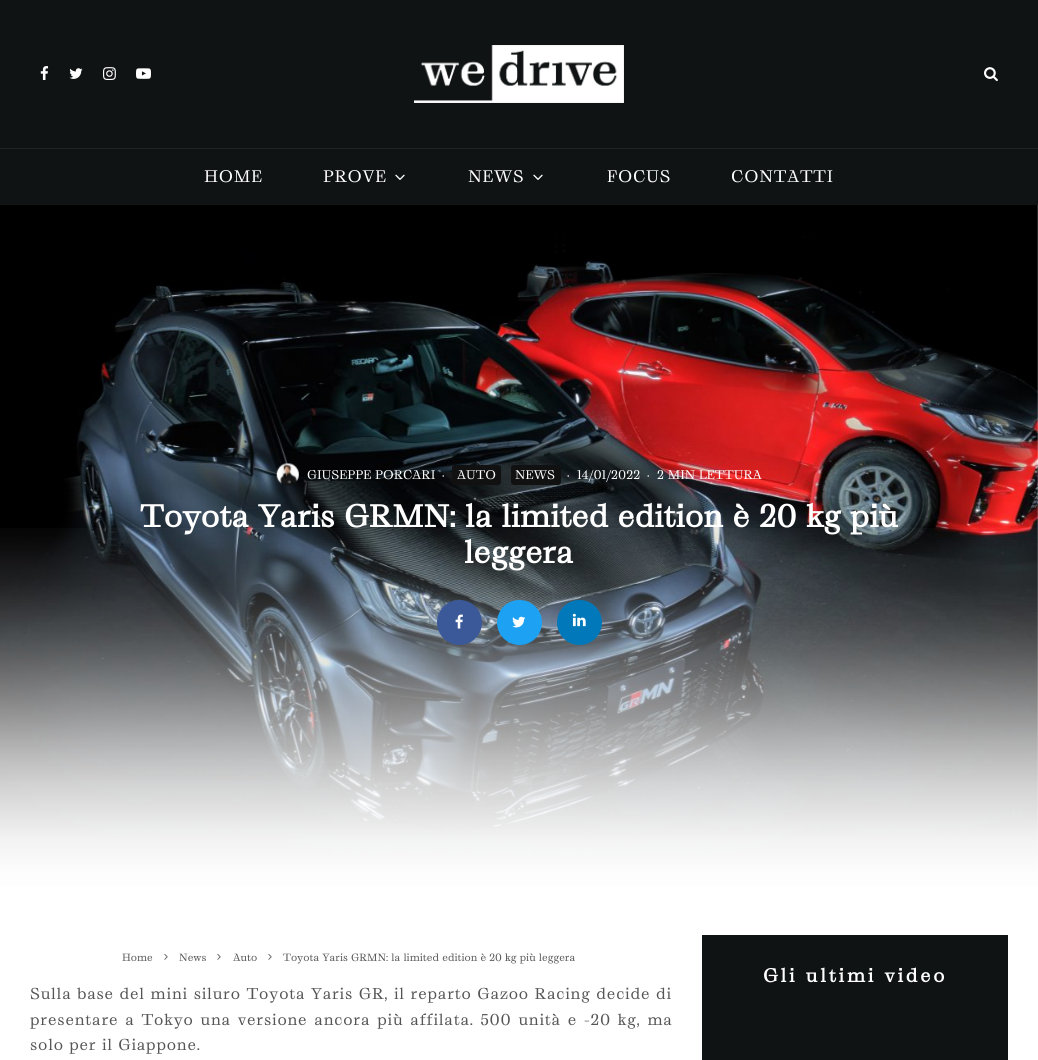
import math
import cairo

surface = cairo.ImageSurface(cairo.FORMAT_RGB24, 1038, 1060)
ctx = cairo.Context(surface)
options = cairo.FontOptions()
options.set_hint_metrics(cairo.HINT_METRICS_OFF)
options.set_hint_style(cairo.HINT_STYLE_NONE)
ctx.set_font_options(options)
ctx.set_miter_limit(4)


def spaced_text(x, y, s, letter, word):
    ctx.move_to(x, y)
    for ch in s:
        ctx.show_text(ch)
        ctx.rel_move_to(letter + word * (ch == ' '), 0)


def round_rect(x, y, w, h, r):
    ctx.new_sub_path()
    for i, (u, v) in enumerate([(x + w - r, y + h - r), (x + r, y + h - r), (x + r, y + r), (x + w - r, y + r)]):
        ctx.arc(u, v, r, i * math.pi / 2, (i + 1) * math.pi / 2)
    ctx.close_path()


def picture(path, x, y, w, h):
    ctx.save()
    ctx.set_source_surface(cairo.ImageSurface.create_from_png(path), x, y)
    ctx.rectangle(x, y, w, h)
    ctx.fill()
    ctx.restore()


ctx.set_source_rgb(1, 1, 1)
ctx.paint()
ctx.set_source_rgb(0.063, 0.075, 0.078)
ctx.rectangle(0, 0, 1038, 148)
ctx.fill()
picture("img1.png", 40, 66, 9, 14)
picture("img2.png", 69, 68, 14, 11)
picture("img3.png", 103, 67, 13, 13)
picture("img4.png", 136, 68, 15, 11)
picture("img5.png", 414, 45, 210, 58)
picture("img6.png", 984, 67, 14, 15)
ctx.rectangle(0, 149, 1038, 56)
ctx.fill()
ctx.set_source_rgb(0.137, 0.137, 0.137)
ctx.rectangle(0, 148, 1038, 1)
ctx.fill()
ctx.select_font_face("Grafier")
ctx.set_font_size(16)
ctx.set_source_rgb(1, 1, 1)
spaced_text(204, 182, "HOME", 0.75, 0)
spaced_text(323, 182, "PROVE", 0.75, 0)
picture("img7.png", 395, 174, 10, 6)
spaced_text(468, 182, "NEWS", 0.75, 0)
picture("img7.png", 533, 174, 10, 6)
spaced_text(607, 182, "FOCUS", 0.75, 0)
spaced_text(731, 182, "CONTATTI", 0.75, 0)
picture("img8.png", 0, 205, 1038, 681)
gradient = cairo.LinearGradient(519, 486, 519, 906)
gradient.add_color_stop_rgba(0, 1, 1, 1, 0)
gradient.add_color_stop_rgba(0.08, 1, 1, 1, 0.01)
gradient.add_color_stop_rgba(0.15, 1, 1, 1, 0.05)
gradient.add_color_stop_rgba(0.23, 1, 1, 1, 0.11)
gradient.add_color_stop_rgba(0.29, 1, 1, 1, 0.18)
gradient.add_color_stop_rgba(0.35, 1, 1, 1, 0.26)
gradient.add_color_stop_rgba(0.41, 1, 1, 1, 0.35)
gradient.add_color_stop_rgba(0.47, 1, 1, 1, 0.45)
gradient.add_color_stop_rgba(0.53, 1, 1, 1, 0.55)
gradient.add_color_stop_rgba(0.59, 1, 1, 1, 0.65)
gradient.add_color_stop_rgba(0.65, 1, 1, 1, 0.74)
gradient.add_color_stop_rgba(0.71, 1, 1, 1, 0.82)
gradient.add_color_stop_rgba(0.78, 1, 1, 1, 0.89)
gradient.add_color_stop_rgba(0.84, 1, 1, 1, 0.95)
gradient.add_color_stop_rgba(0.92, 1, 1, 1, 0.99)
gradient.add_color_stop_rgba(1, 1, 1, 1, 1)
ctx.set_source(gradient)
ctx.rectangle(0, 528, 1038, 358)
ctx.fill()
picture("img9.png", 276, 463, 23, 23)
ctx.set_font_size(12)
ctx.set_source_rgb(1, 1, 1)
ctx.move_to(307, 479)
ctx.show_text("GIUSEPPE PORCARI")
ctx.move_to(442, 479)
ctx.show_text("·")
ctx.set_source_rgb(0.067, 0.067, 0.067)
round_rect(452, 465, 49, 20, 3)
ctx.fill()
ctx.set_source_rgb(1, 1, 1)
ctx.move_to(457, 479)
ctx.show_text("AUTO")
ctx.set_source_rgb(0.067, 0.067, 0.067)
round_rect(511, 465, 50, 20, 3)
ctx.fill()
ctx.set_source_rgb(1, 1, 1)
ctx.move_to(515, 479)
ctx.show_text("NEWS")
ctx.move_to(567, 479)
ctx.show_text("·")
ctx.move_to(577, 479)
ctx.show_text("14/01/2022")
ctx.move_to(647, 479)
ctx.show_text("·")
ctx.move_to(657, 479)
ctx.show_text("2 MIN LETTURA")
ctx.select_font_face("Grafier", cairo.FONT_SLANT_NORMAL, cairo.FONT_WEIGHT_BOLD)
ctx.set_font_size(30)
ctx.move_to(140, 527)
ctx.show_text("Toyota Yaris GRMN: la limited edition è 20 kg più")
ctx.move_to(464, 563)
ctx.show_text("leggera")
ctx.set_source_rgb(0.231, 0.349, 0.596)
ctx.new_path()
ctx.arc(459.5, 622.5, 22.5, 0, 2 * math.pi)
ctx.fill()
picture("img10.png", 455, 614, 8, 15)
ctx.set_source_rgb(0.114, 0.631, 0.949)
ctx.arc(519.5, 622.5, 22.5, 0, 2 * math.pi)
ctx.fill()
picture("img11.png", 512, 616, 14, 12)
ctx.set_source_rgb(0, 0.471, 0.729)
ctx.arc(579.5, 622.5, 22.5, 0, 2 * math.pi)
ctx.fill()
picture("img12.png", 572, 613, 14, 14)
ctx.select_font_face("Grafier")
ctx.set_font_size(10)
ctx.set_source_rgb(0.333, 0.333, 0.333)
ctx.move_to(122, 961)
ctx.show_text("Home")
picture("img13.png", 164, 954, 4, 6)
ctx.move_to(179, 961)
ctx.show_text("News")
picture("img13.png", 217, 954, 4, 6)
ctx.move_to(233, 961)
ctx.show_text("Auto")
picture("img13.png", 268, 954, 4, 6)
ctx.move_to(283, 961)
ctx.show_text("Toyota Yaris GRMN: la limited edition è 20 kg più leggera")
ctx.set_font_size(15)
spaced_text(30, 999, "Sulla base del mini siluro Toyota Yaris GR, il reparto Gazoo Racing decide di", 0.75, 0.25)
spaced_text(30, 1025, "presentare a Tokyo una versione ancora più affilata. 500 unità e -20 kg, ma", 0.75, 1.5)
spaced_text(30, 1050, "solo per il Giappone.", 0.75, 0)
ctx.set_source_rgb(0.059, 0.075, 0.078)
ctx.rectangle(702, 935, 306, 125)
ctx.fill()
ctx.select_font_face("Grafier", cairo.FONT_SLANT_NORMAL, cairo.FONT_WEIGHT_BOLD)
ctx.set_font_size(18)
ctx.set_source_rgb(1, 1, 1)
spaced_text(763, 982, "Gli ultimi video", 2.75, 0)
surface.write_to_png("page.png")
